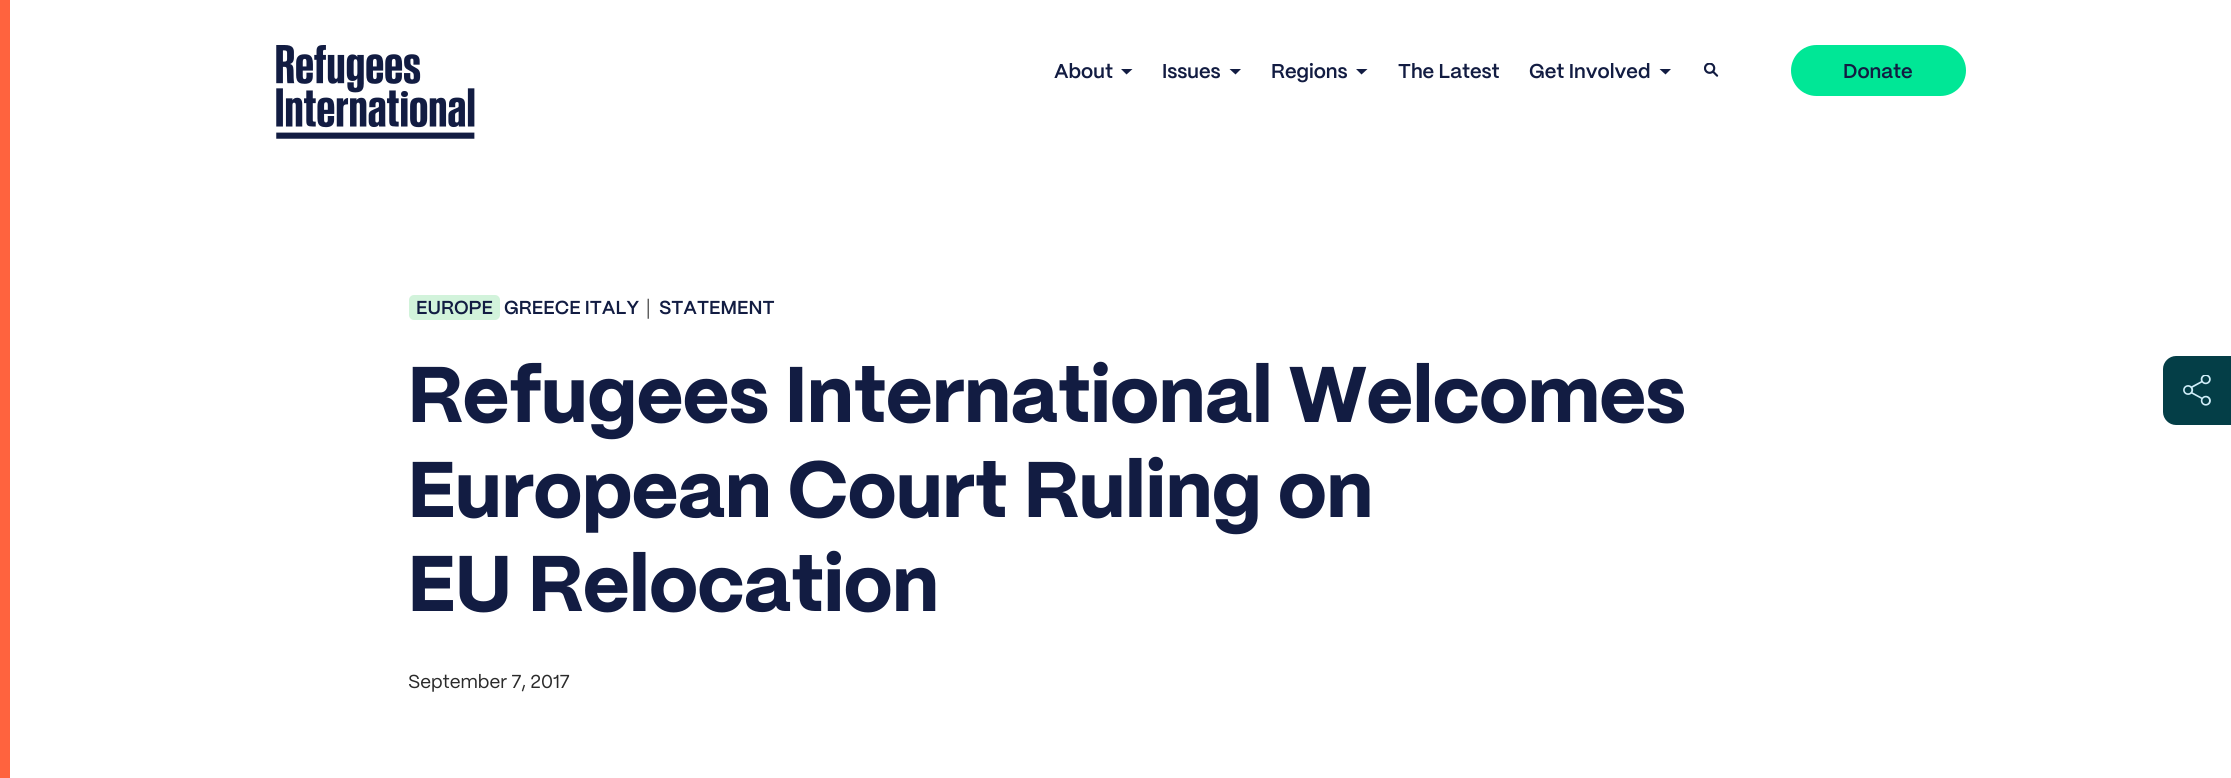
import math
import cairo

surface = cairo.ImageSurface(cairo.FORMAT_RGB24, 2231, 778)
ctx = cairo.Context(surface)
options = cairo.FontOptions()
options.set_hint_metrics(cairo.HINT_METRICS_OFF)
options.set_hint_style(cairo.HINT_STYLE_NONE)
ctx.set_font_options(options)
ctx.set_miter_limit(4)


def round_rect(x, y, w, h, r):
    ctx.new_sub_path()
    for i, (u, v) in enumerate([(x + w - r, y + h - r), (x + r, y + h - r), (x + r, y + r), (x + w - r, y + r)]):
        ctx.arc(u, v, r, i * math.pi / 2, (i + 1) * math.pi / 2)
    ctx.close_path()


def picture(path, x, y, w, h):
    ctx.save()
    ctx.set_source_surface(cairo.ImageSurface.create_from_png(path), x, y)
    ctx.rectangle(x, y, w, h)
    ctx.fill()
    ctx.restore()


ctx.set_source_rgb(1, 1, 1)
ctx.paint()
ctx.set_source_rgb(1, 0.388, 0.243)
ctx.rectangle(0, 0, 10, 778)
ctx.fill()
picture("img1.png", 276, 45, 199, 94)
ctx.select_font_face("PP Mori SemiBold")
ctx.set_font_size(20)
ctx.set_source_rgb(0.071, 0.11, 0.259)
ctx.move_to(1054, 78)
ctx.show_text("About")
ctx.set_fill_rule(cairo.FILL_RULE_EVEN_ODD)
ctx.new_path()
ctx.move_to(1132.5, 69)
ctx.line_to(1126.5, 74.5)
ctx.line_to(1121, 69)
ctx.close_path()
ctx.fill()
ctx.move_to(1162, 78)
ctx.show_text("Issues")
ctx.new_path()
ctx.move_to(1241, 69)
ctx.line_to(1235.5, 74.5)
ctx.line_to(1229.5, 69)
ctx.close_path()
ctx.fill()
ctx.move_to(1271, 78)
ctx.show_text("Regions")
ctx.new_path()
ctx.move_to(1367.5, 69)
ctx.line_to(1361.5, 74.5)
ctx.line_to(1356, 69)
ctx.close_path()
ctx.fill()
ctx.move_to(1398, 78)
ctx.show_text("The Latest")
ctx.move_to(1529, 78)
ctx.show_text("Get Involved")
ctx.new_path()
ctx.move_to(1671, 69)
ctx.line_to(1665.5, 74.5)
ctx.line_to(1659.5, 69)
ctx.close_path()
ctx.fill()
picture("img2.png", 1704, 63, 15, 14)
ctx.set_source_rgb(0, 0.906, 0.588)
round_rect(1791, 45, 175, 51, 25.5)
ctx.fill()
ctx.set_source_rgb(0.071, 0.11, 0.259)
ctx.move_to(1843, 78)
ctx.show_text("Donate")
ctx.set_source_rgb(0.824, 0.953, 0.859)
round_rect(409, 295, 91, 25, 5)
ctx.fill()
ctx.set_font_size(18.75)
ctx.set_source_rgb(0.071, 0.11, 0.259)
ctx.move_to(416, 314)
ctx.show_text("EUROPE")
ctx.move_to(504, 314)
ctx.show_text("GREECE ITALY")
ctx.select_font_face("Liberation Serif")
ctx.set_font_size(22)
ctx.set_source_rgb(0.169, 0.169, 0.169)
ctx.move_to(646, 314)
ctx.show_text("|")
ctx.select_font_face("PP Mori SemiBold")
ctx.set_font_size(18.75)
ctx.set_source_rgb(0.071, 0.11, 0.259)
ctx.move_to(659, 314)
ctx.show_text("STATEMENT")
ctx.select_font_face("PP Mori ExtraBold")
ctx.set_font_size(78.75)
ctx.move_to(408, 422)
ctx.show_text("Refugees International Welcomes")
ctx.move_to(408, 517)
ctx.show_text("European Court Ruling on")
ctx.move_to(408, 611)
ctx.show_text("EU Relocation")
ctx.select_font_face("PP Mori")
ctx.set_font_size(18.75)
ctx.set_source_rgb(0.169, 0.169, 0.169)
ctx.move_to(408, 688)
ctx.show_text("September 7, 2017")
ctx.set_source_rgb(0.016, 0.243, 0.278)
ctx.new_path()
ctx.move_to(2176, 356)
ctx.line_to(2231, 356)
ctx.line_to(2231, 425)
ctx.line_to(2176, 425)
ctx.curve_to(2169, 425, 2163, 419, 2163, 412)
ctx.line_to(2163, 369)
ctx.curve_to(2163, 362, 2169, 356, 2176, 356)
ctx.close_path()
ctx.fill()
picture("img3.png", 2183, 375, 28, 31)
surface.write_to_png("page.png")
